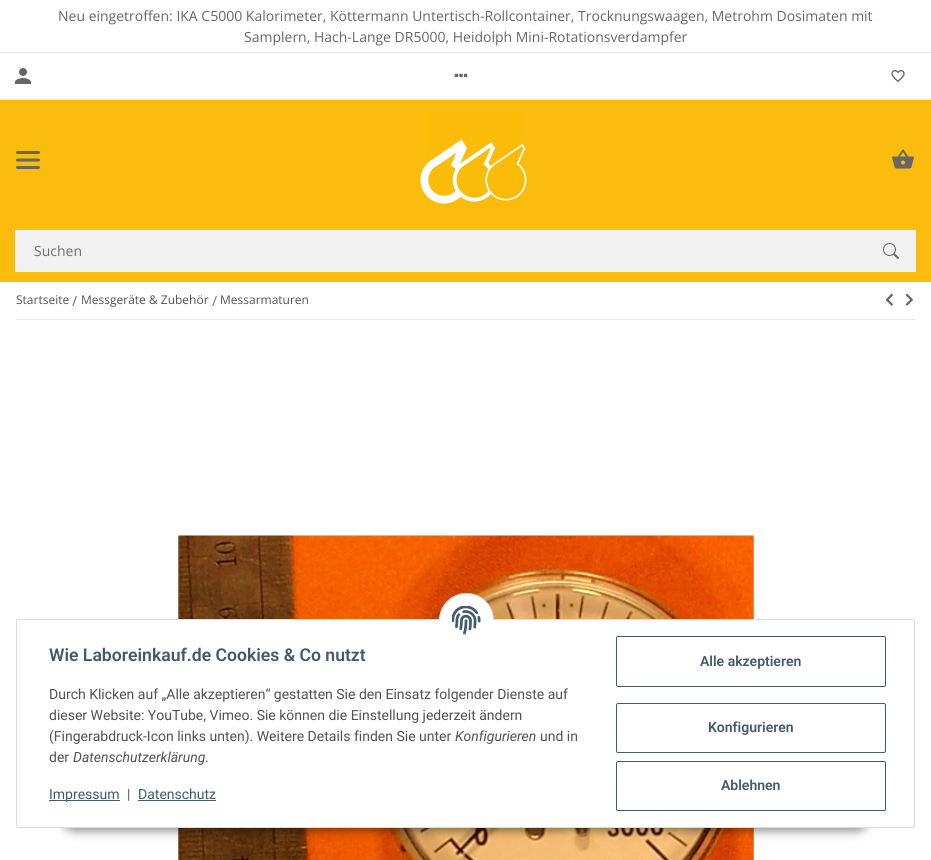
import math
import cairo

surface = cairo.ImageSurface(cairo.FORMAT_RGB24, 931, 860)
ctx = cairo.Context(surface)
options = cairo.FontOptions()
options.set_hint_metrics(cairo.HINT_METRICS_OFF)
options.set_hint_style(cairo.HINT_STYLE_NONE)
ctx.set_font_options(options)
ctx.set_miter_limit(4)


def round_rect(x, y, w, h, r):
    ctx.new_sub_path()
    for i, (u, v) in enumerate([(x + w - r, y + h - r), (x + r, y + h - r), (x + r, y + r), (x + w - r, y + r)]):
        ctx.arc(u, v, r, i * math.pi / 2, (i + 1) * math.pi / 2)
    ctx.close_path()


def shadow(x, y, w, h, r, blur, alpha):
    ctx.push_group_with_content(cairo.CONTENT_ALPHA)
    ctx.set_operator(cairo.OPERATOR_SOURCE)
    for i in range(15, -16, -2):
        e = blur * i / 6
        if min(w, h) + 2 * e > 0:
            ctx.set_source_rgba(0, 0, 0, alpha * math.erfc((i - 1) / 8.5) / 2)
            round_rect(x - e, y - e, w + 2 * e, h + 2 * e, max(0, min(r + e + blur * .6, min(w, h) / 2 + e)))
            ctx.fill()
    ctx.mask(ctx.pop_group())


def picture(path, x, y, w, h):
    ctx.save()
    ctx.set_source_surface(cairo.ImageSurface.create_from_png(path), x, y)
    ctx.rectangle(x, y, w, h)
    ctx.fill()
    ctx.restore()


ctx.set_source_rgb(1, 1, 1)
ctx.paint()
ctx.select_font_face("Open Sans")
ctx.set_font_size(14)
ctx.set_source_rgb(0.4, 0.4, 0.4)
ctx.move_to(58, 21)
ctx.show_text("Neu eingetroffen: IKA C5000 Kalorimeter, Köttermann Untertisch-Rollcontainer, Trocknungswaagen, Metrohm Dosimaten mit")
ctx.move_to(244, 42)
ctx.show_text("Samplern, Hach-Lange DR5000, Heidolph Mini-Rotationsverdampfer")
ctx.set_source_rgb(0.914, 0.914, 0.914)
ctx.rectangle(0, 52, 931, 1)
ctx.fill()
ctx.rectangle(0, 99, 931, 1)
ctx.fill()
picture("img1.png", 15, 68, 16, 16)
picture("img2.png", 454, 73, 14, 5)
picture("img3.png", 891, 70, 14, 13)
ctx.set_source_rgb(0.984, 0.737, 0.055)
ctx.rectangle(0, 100, 931, 182)
ctx.fill()
picture("img4.png", 16, 151, 24, 18)
picture("img5.png", 420, 111, 107, 98)
picture("img6.png", 892, 149, 22, 20)
ctx.set_source_rgb(0.945, 0.945, 0.945)
ctx.rectangle(15, 230, 901, 42)
ctx.fill()
ctx.set_source_rgb(0.439, 0.439, 0.439)
ctx.move_to(34, 256)
ctx.show_text("Suchen")
picture("img7.png", 883, 243, 16, 16)
ctx.set_font_size(12)
ctx.set_source_rgb(0.322, 0.322, 0.322)
ctx.move_to(16, 304)
ctx.show_text("Startseite")
ctx.set_font_size(14)
ctx.set_source_rgb(0.439, 0.439, 0.439)
ctx.move_to(72, 306)
ctx.show_text("/")
ctx.set_font_size(12)
ctx.set_source_rgb(0.322, 0.322, 0.322)
ctx.move_to(81, 304)
ctx.show_text("Messgeräte & Zubehör")
ctx.set_font_size(14)
ctx.set_source_rgb(0.439, 0.439, 0.439)
ctx.move_to(212, 306)
ctx.show_text("/")
ctx.set_font_size(12)
ctx.set_source_rgb(0.322, 0.322, 0.322)
ctx.move_to(220, 304)
ctx.show_text("Messarmaturen")
picture("img8.png", 885, 293, 8, 13)
picture("img9.png", 905, 293, 8, 13)
ctx.set_source_rgb(0.914, 0.914, 0.914)
ctx.rectangle(16, 319, 899, 1)
ctx.fill()
picture("img10.png", 177, 534, 578, 326)
ctx.set_source_rgb(0, 0, 0)
shadow(62, 799, 807, 32, 16, 5, 0.45)
ctx.set_source_rgb(1, 1, 1)
round_rect(16.5, 619.5, 898, 208, 1.5)
ctx.fill_preserve()
ctx.set_source_rgb(0.867, 0.867, 0.867)
ctx.set_line_width(1)
ctx.stroke()
ctx.set_source_rgb(1, 1, 1)
ctx.arc(466.5, 620.5, 27, 0, 2 * math.pi)
ctx.fill_preserve()
ctx.set_source_rgb(0.867, 0.867, 0.867)
ctx.stroke()
ctx.set_source_rgb(1, 1, 1)
ctx.rectangle(439, 621, 55, 27)
ctx.fill()
picture("img11.png", 452, 606, 29, 29)
ctx.select_font_face("Roboto SemiBold")
ctx.set_font_size(17.6)
ctx.set_source_rgb(0.263, 0.353, 0.42)
ctx.move_to(49, 661)
ctx.show_text("Wie Laboreinkauf.de Cookies & Co nutzt")
ctx.select_font_face("Roboto")
ctx.set_font_size(14)
ctx.set_source_rgb(0.322, 0.322, 0.322)
ctx.move_to(49, 699)
ctx.show_text("Durch Klicken auf „Alle akzeptieren“ gestatten Sie den Einsatz folgender Dienste auf")
ctx.move_to(49, 720)
ctx.show_text("dieser Website: YouTube, Vimeo. Sie können die Einstellung jederzeit ändern")
ctx.move_to(49, 741)
ctx.show_text("(Fingerabdruck-Icon links unten). Weitere Details finden Sie unter")
ctx.select_font_face("Roboto", cairo.FONT_SLANT_ITALIC)
ctx.move_to(455, 741)
ctx.show_text("Konfigurieren")
ctx.select_font_face("Roboto")
ctx.move_to(540, 741)
ctx.show_text("und in")
ctx.move_to(49, 762)
ctx.show_text("der")
ctx.select_font_face("Roboto", cairo.FONT_SLANT_ITALIC)
ctx.move_to(73, 762)
ctx.show_text("Datenschutzerklärung")
ctx.select_font_face("Roboto")
ctx.move_to(205, 762)
ctx.show_text(".")
ctx.set_source_rgb(0.263, 0.353, 0.42)
ctx.rectangle(49, 800, 71, 1)
ctx.fill()
ctx.move_to(49, 799)
ctx.show_text("Impressum")
ctx.set_source_rgb(0.322, 0.322, 0.322)
ctx.move_to(127, 799)
ctx.show_text("|")
ctx.set_source_rgb(0.263, 0.353, 0.42)
ctx.move_to(138, 799)
ctx.show_text("Datenschutz")
ctx.rectangle(138, 800, 78, 1)
ctx.fill()
round_rect(616.5, 636.5, 269, 50, 1.5)
ctx.stroke()
ctx.select_font_face("Roboto SemiBold")
ctx.move_to(700, 666)
ctx.show_text("Alle akzeptieren")
round_rect(616.5, 703.5, 269, 49, 1.5)
ctx.stroke()
ctx.move_to(708, 732)
ctx.show_text("Konfigurieren")
round_rect(616.5, 761.5, 269, 49, 1.5)
ctx.stroke()
ctx.move_to(721, 790)
ctx.show_text("Ablehnen")
surface.write_to_png("page.png")
